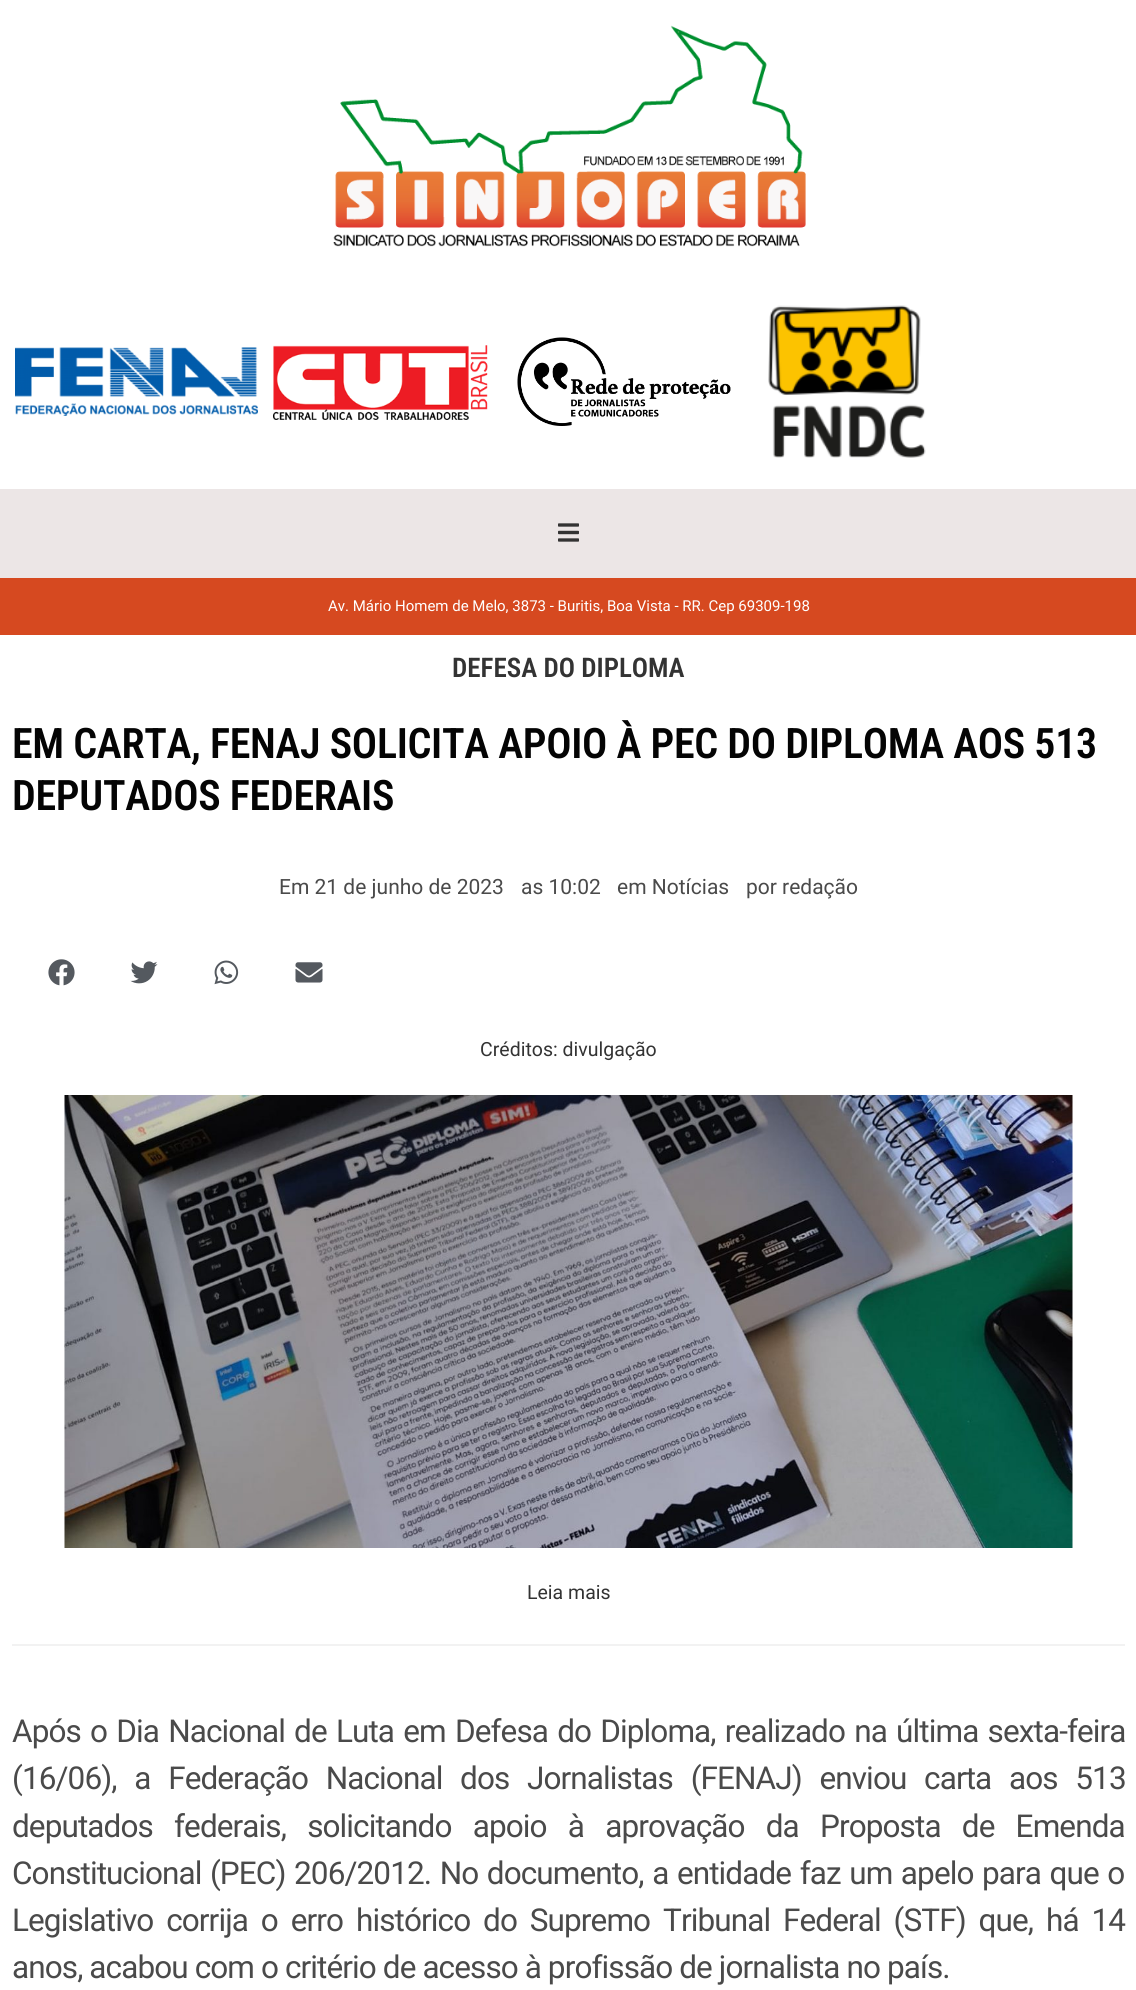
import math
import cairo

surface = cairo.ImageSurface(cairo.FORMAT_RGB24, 1136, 1990)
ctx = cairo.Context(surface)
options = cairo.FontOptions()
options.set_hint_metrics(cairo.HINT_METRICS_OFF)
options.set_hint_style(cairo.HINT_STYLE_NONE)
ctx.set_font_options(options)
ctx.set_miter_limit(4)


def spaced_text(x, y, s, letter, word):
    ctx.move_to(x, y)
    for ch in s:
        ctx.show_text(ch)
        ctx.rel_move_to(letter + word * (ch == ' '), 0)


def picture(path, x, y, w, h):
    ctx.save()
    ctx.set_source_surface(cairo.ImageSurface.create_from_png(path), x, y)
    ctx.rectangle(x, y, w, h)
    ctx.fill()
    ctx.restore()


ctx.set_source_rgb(1, 1, 1)
ctx.paint()
picture("img1.png", 333, 25, 473, 222)
picture("img2.png", 15, 347, 243, 69)
picture("img3.png", 273, 345, 215, 75)
picture("img4.png", 517, 337, 214, 89)
picture("img5.png", 768, 305, 158, 153)
ctx.set_source_rgb(0.922, 0.902, 0.902)
ctx.rectangle(0, 489, 1136, 89)
ctx.fill()
picture("img6.png", 558, 523, 21, 19)
ctx.set_source_rgb(0.839, 0.286, 0.125)
ctx.rectangle(0, 578, 1136, 57)
ctx.fill()
ctx.select_font_face("Roboto")
ctx.set_font_size(15)
ctx.set_source_rgb(1, 1, 1)
ctx.move_to(328, 611)
ctx.show_text("Av. Mário Homem de Melo, 3873 - Buritis, Boa Vista - RR. Cep 69309-198")
ctx.select_font_face("Roboto Condensed SemiBold")
ctx.set_font_size(27)
ctx.set_source_rgb(0.2, 0.2, 0.2)
ctx.move_to(452, 677)
ctx.show_text("DEFESA DO DIPLOMA")
ctx.set_font_size(42)
ctx.set_source_rgb(0.016, 0.016, 0.016)
spaced_text(12, 758, "EM CARTA, FENAJ SOLICITA APOIO À PEC DO DIPLOMA AOS 513", -0.3, 0)
spaced_text(12, 810, "DEPUTADOS FEDERAIS", -0.3, 0)
ctx.select_font_face("Roboto")
ctx.set_font_size(21)
ctx.set_source_rgb(0.29, 0.29, 0.29)
ctx.move_to(279, 894)
ctx.show_text("Em 21 de junho de 2023")
ctx.move_to(521, 894)
ctx.show_text("as 10:02")
ctx.move_to(617, 894)
ctx.show_text("em Notícias")
ctx.move_to(746, 894)
ctx.show_text("por redação")
picture("img7.png", 48, 959, 27, 27)
picture("img8.png", 130, 961, 28, 23)
picture("img9.png", 214, 960, 25, 25)
picture("img10.png", 295, 962, 28, 21)
ctx.set_font_size(19.5)
ctx.set_source_rgb(0.2, 0.2, 0.2)
ctx.move_to(480, 1056)
ctx.show_text("Créditos: divulgação")
picture("img11.png", 64, 1095, 1009, 453)
ctx.move_to(527, 1599)
ctx.show_text("Leia mais")
ctx.set_source_rgb(0.949, 0.949, 0.949)
ctx.rectangle(12, 1644, 1113, 2)
ctx.fill()
ctx.set_font_size(31.5)
ctx.set_source_rgb(0.29, 0.29, 0.29)
spaced_text(12, 1742, "Após o Dia Nacional de Luta em Defesa do Diploma, realizado na última sexta-feira", -0.9, 2.25)
spaced_text(12, 1789, "(16/06), a Federação Nacional dos Jornalistas (FENAJ) enviou carta aos 513", -0.9, 10.75)
spaced_text(12, 1837, "deputados federais, solicitando apoio à aprovação da Proposta de Emenda", -0.9, 14.25)
spaced_text(12, 1884, "Constitucional (PEC) 206/2012. No documento, a entidade faz um apelo para que o", -0.9, 1.6)
spaced_text(12, 1931, "Legislativo corrija o erro histórico do Supremo Tribunal Federal (STF) que, há 14", -0.9, 5.9)
spaced_text(12, 1978, "anos, acabou com o critério de acesso à profissão de jornalista no país.", -0.9, 0)
surface.write_to_png("page.png")
